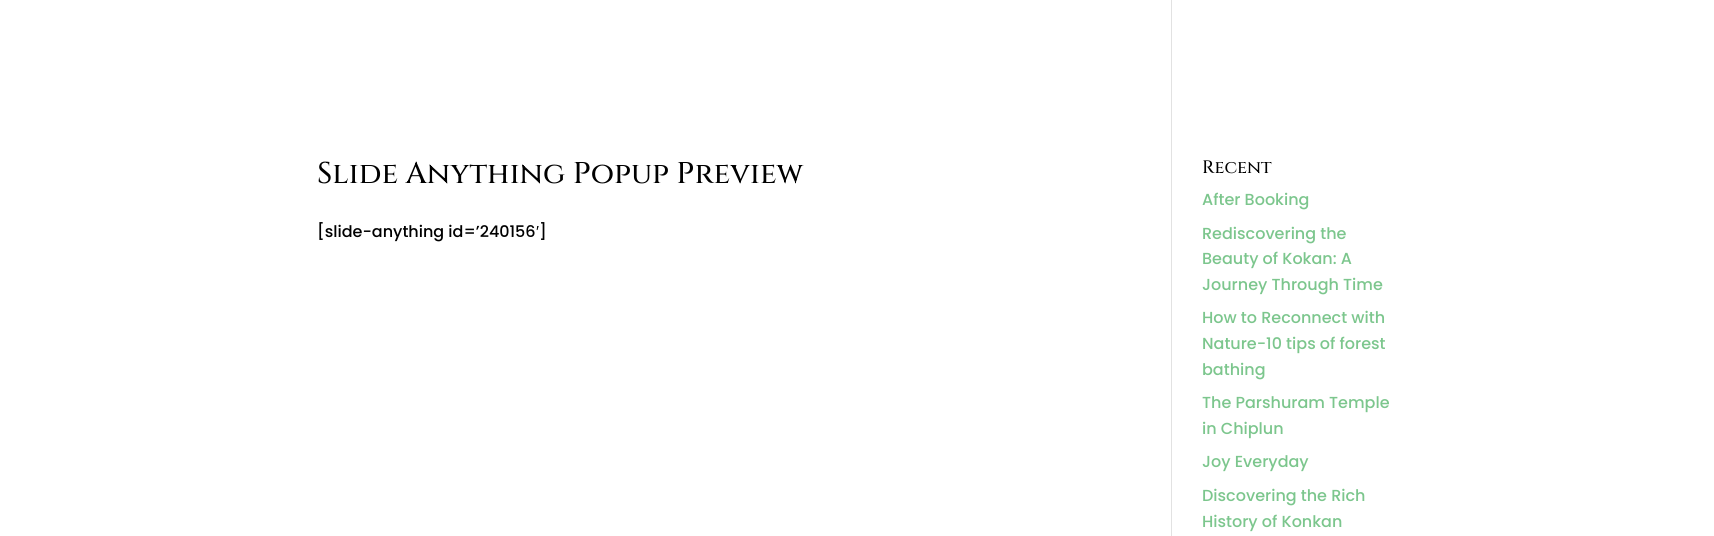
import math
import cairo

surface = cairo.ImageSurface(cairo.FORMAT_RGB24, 1714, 536)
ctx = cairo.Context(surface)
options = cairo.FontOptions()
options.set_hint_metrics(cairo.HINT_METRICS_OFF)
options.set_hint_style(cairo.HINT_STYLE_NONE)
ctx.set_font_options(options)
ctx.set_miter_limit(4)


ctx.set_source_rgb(1, 1, 1)
ctx.paint()
ctx.set_source_rgb(0.886, 0.886, 0.886)
ctx.rectangle(1171, 0, 1, 536)
ctx.fill()
ctx.select_font_face("Cinzel Medium")
ctx.set_font_size(30)
ctx.set_source_rgb(0, 0, 0)
ctx.move_to(317, 183)
ctx.show_text("Slide Anything Popup Preview")
ctx.select_font_face("Poppins Medium")
ctx.set_font_size(16)
ctx.move_to(317, 237)
ctx.show_text("[slide-anything id=’240156")
ctx.select_font_face("Liberation Sans")
ctx.move_to(536, 237)
ctx.show_text("′")
ctx.select_font_face("Poppins Medium")
ctx.move_to(539, 237)
ctx.show_text("]")
ctx.select_font_face("Cinzel Medium")
ctx.set_font_size(18)
ctx.move_to(1202, 173)
ctx.show_text("Recent")
ctx.select_font_face("Poppins Medium")
ctx.set_font_size(16)
ctx.set_source_rgb(0.486, 0.776, 0.553)
ctx.move_to(1202, 205)
ctx.show_text("After Booking")
ctx.move_to(1202, 239)
ctx.show_text("Rediscovering the")
ctx.move_to(1202, 264)
ctx.show_text("Beauty of Kokan: A")
ctx.move_to(1202, 290)
ctx.show_text("Journey Through Time")
ctx.move_to(1202, 323)
ctx.show_text("How to Reconnect with")
ctx.move_to(1202, 349)
ctx.show_text("Nature-10 tips of forest")
ctx.move_to(1202, 375)
ctx.show_text("bathing")
ctx.move_to(1202, 408)
ctx.show_text("The Parshuram Temple")
ctx.move_to(1202, 434)
ctx.show_text("in Chiplun")
ctx.move_to(1202, 467)
ctx.show_text("Joy Everyday")
ctx.move_to(1202, 501)
ctx.show_text("Discovering the Rich")
ctx.move_to(1202, 527)
ctx.show_text("History of Konkan")
surface.write_to_png("page.png")
